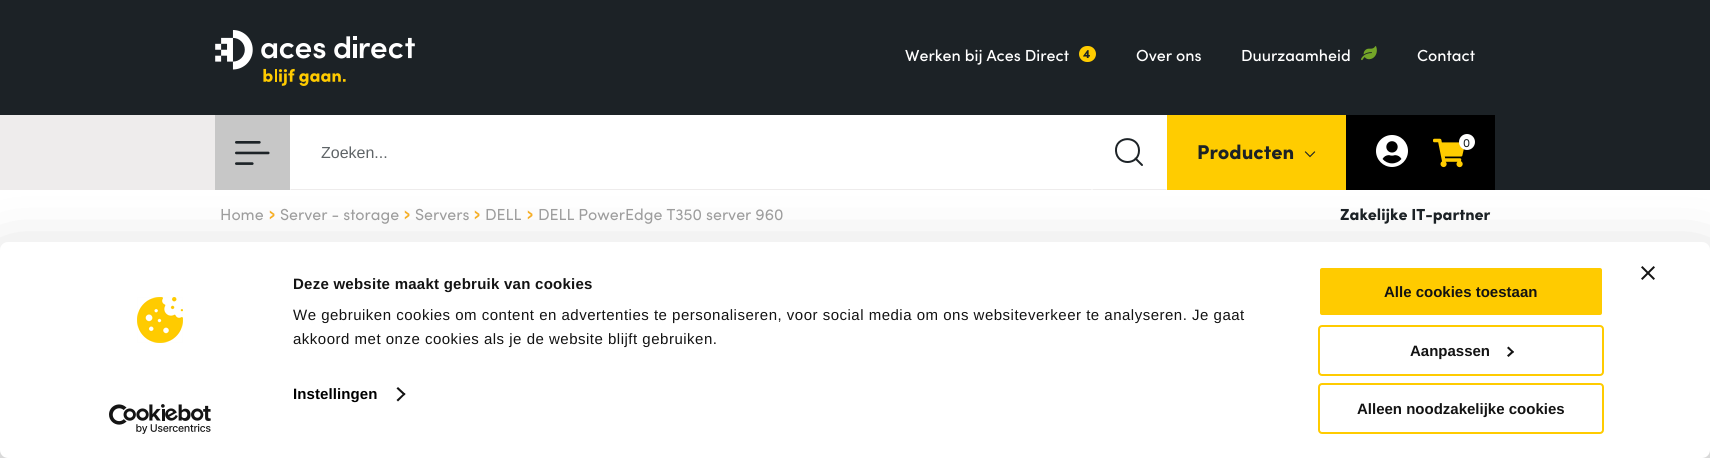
import math
import cairo

surface = cairo.ImageSurface(cairo.FORMAT_RGB24, 1710, 458)
ctx = cairo.Context(surface)
options = cairo.FontOptions()
options.set_hint_metrics(cairo.HINT_METRICS_OFF)
options.set_hint_style(cairo.HINT_STYLE_NONE)
ctx.set_font_options(options)
ctx.set_miter_limit(4)


def spaced_text(x, y, s, letter, word):
    ctx.move_to(x, y)
    for ch in s:
        ctx.show_text(ch)
        ctx.rel_move_to(letter + word * (ch == ' '), 0)


def round_rect(x, y, w, h, r):
    ctx.new_sub_path()
    for i, (u, v) in enumerate([(x + w - r, y + h - r), (x + r, y + h - r), (x + r, y + r), (x + w - r, y + r)]):
        ctx.arc(u, v, r, i * math.pi / 2, (i + 1) * math.pi / 2)
    ctx.close_path()


def shadow(x, y, w, h, r, blur, alpha):
    ctx.push_group_with_content(cairo.CONTENT_ALPHA)
    ctx.set_operator(cairo.OPERATOR_SOURCE)
    for i in range(15, -16, -2):
        e = blur * i / 6
        if min(w, h) + 2 * e > 0:
            ctx.set_source_rgba(0, 0, 0, alpha * math.erfc((i - 1) / 8.5) / 2)
            round_rect(x - e, y - e, w + 2 * e, h + 2 * e, max(0, min(r + e + blur * .6, min(w, h) / 2 + e)))
            ctx.fill()
    ctx.mask(ctx.pop_group())


def picture(path, x, y, w, h):
    ctx.save()
    ctx.set_source_surface(cairo.ImageSurface.create_from_png(path), x, y)
    ctx.rectangle(x, y, w, h)
    ctx.fill()
    ctx.restore()


ctx.set_source_rgb(1, 1, 1)
ctx.paint()
ctx.set_source_rgb(0.11, 0.133, 0.149)
ctx.rectangle(0, 0, 1710, 115)
ctx.fill()
picture("img1.png", 215, 30, 200, 56)
ctx.select_font_face("Sofia Medium")
ctx.set_font_size(16)
ctx.set_source_rgb(1, 1, 1)
ctx.move_to(905, 61)
ctx.show_text("Werken bij Aces Direct")
ctx.set_source_rgb(1, 0.8, 0)
round_rect(1079, 46, 17, 16, 8)
ctx.fill()
ctx.select_font_face("Sofia Black")
ctx.set_font_size(12)
ctx.set_source_rgb(0.11, 0.133, 0.149)
ctx.move_to(1083, 58)
ctx.show_text("4")
ctx.select_font_face("Sofia Medium")
ctx.set_font_size(16)
ctx.set_source_rgb(1, 1, 1)
ctx.move_to(1136, 61)
ctx.show_text("Over ons")
ctx.move_to(1241, 61)
ctx.show_text("Duurzaamheid")
picture("img2.png", 1361, 46, 16, 15)
ctx.move_to(1417, 61)
ctx.show_text("Contact")
ctx.set_source_rgb(0.933, 0.925, 0.925)
ctx.rectangle(0, 115, 215, 75)
ctx.fill()
ctx.set_source_rgb(0.78, 0.78, 0.78)
ctx.rectangle(215, 115, 75, 75)
ctx.fill()
picture("img3.png", 235, 141, 35, 24)
ctx.set_source_rgb(0.933, 0.925, 0.925)
ctx.new_path()
ctx.move_to(1092, 190)
ctx.line_to(290, 190)
ctx.line_to(291, 189)
ctx.line_to(1091, 189)
ctx.close_path()
ctx.fill()
ctx.select_font_face("Liberation Sans")
ctx.set_source_rgb(0.373, 0.392, 0.404)
ctx.move_to(321, 158)
ctx.show_text("Zoeken...")
ctx.set_source_rgb(0.933, 0.925, 0.925)
ctx.new_path()
ctx.move_to(1167, 190)
ctx.line_to(1092, 190)
ctx.line_to(1093, 189)
ctx.line_to(1166, 189)
ctx.close_path()
ctx.fill()
ctx.new_path()
ctx.move_to(1139, 150.5)
ctx.curve_to(1139, 165.5, 1117, 166, 1116, 151)
ctx.curve_to(1115, 135.5, 1139, 135, 1139, 150.5)
ctx.close_path()
ctx.move_to(1142, 165)
ctx.line_to(1135.5, 158.5)
ctx.set_source_rgb(0.114, 0.137, 0.153)
ctx.set_line_cap(cairo.LINE_CAP_ROUND)
ctx.set_line_join(cairo.LINE_JOIN_ROUND)
ctx.stroke()
ctx.set_source_rgb(1, 0.8, 0)
ctx.rectangle(1167, 115, 179, 75)
ctx.fill()
ctx.select_font_face("Sofia Black")
ctx.set_font_size(20)
ctx.set_source_rgb(0.11, 0.133, 0.149)
ctx.move_to(1197, 159)
ctx.show_text("Producten")
picture("img4.png", 1304, 151, 12, 7)
ctx.set_source_rgb(0, 0, 0)
ctx.rectangle(1346, 115, 149, 75)
ctx.fill()
picture("img5.png", 1376, 135, 32, 32)
picture("img6.png", 1433, 138, 31, 30)
ctx.set_source_rgb(1, 1, 1)
ctx.arc(1467, 142, 8, 0, 2 * math.pi)
ctx.fill()
ctx.select_font_face("Sofia")
ctx.set_font_size(12)
ctx.set_source_rgb(0.11, 0.133, 0.149)
ctx.move_to(1463, 147)
ctx.show_text("0")
ctx.rectangle(1495, 115, 215, 75)
ctx.fill()
ctx.set_font_size(16)
ctx.set_source_rgb(0.624, 0.624, 0.624)
ctx.move_to(220, 220)
ctx.show_text("Home")
picture("img7.png", 269, 210, 6, 10)
ctx.move_to(280, 220)
ctx.show_text("Server - storage")
picture("img7.png", 404, 210, 6, 10)
ctx.move_to(415, 220)
ctx.show_text("Servers")
picture("img7.png", 474, 210, 6, 10)
ctx.move_to(485, 220)
ctx.show_text("DELL")
picture("img7.png", 527, 210, 6, 10)
ctx.move_to(538, 220)
ctx.show_text("DELL PowerEdge T350 server 960")
ctx.select_font_face("Sofia Black")
ctx.set_source_rgb(0.11, 0.133, 0.149)
ctx.move_to(1340, 220)
ctx.show_text("Zakelijke IT-partner")
ctx.set_source_rgb(0, 0, 0)
shadow(0, 272, 1710, 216, 8, 35, 0.3)
ctx.set_source_rgb(1, 1, 1)
round_rect(0, 242, 1710, 216, 8)
ctx.fill()
picture("img8.png", 1641, 266, 14, 14)
picture("img9.png", 137, 297, 46, 46)
picture("img10.png", 109, 404, 102, 30)
ctx.select_font_face("Liberation Sans", cairo.FONT_SLANT_NORMAL, cairo.FONT_WEIGHT_BOLD)
ctx.set_font_size(15)
ctx.set_source_rgb(0.078, 0.078, 0.078)
spaced_text(293, 289, "Deze website maakt gebruik van cookies", 0.25, 0)
ctx.select_font_face("Liberation Sans")
spaced_text(293, 320, "We gebruiken cookies om content en advertenties te personaliseren, voor social media om ons websiteverkeer te analyseren. Je gaat", 0.5, 0)
spaced_text(293, 344, "akkoord met onze cookies als je de website blijft gebruiken.", 0.5, 0)
ctx.select_font_face("Liberation Sans", cairo.FONT_SLANT_NORMAL, cairo.FONT_WEIGHT_BOLD)
ctx.set_source_rgb(0, 0, 0)
spaced_text(293, 399, "Instellingen", 0.1, 0)
ctx.set_source_rgb(0.078, 0.078, 0.078)
ctx.new_path()
ctx.move_to(398, 387)
ctx.line_to(405.5, 394)
ctx.line_to(404, 395.5)
ctx.line_to(396.5, 388.5)
ctx.close_path()
ctx.fill()
ctx.new_path()
ctx.move_to(404, 393)
ctx.line_to(405.5, 394)
ctx.line_to(398, 401.5)
ctx.line_to(396.5, 400)
ctx.close_path()
ctx.fill()
ctx.set_source_rgb(1, 0.796, 0)
round_rect(1319, 267, 284, 49, 3)
ctx.fill_preserve()
ctx.set_source_rgb(1, 1, 1)
ctx.set_line_cap(cairo.LINE_CAP_BUTT)
ctx.set_line_join(cairo.LINE_JOIN_MITER)
ctx.stroke()
ctx.set_source_rgb(0.078, 0.078, 0.078)
ctx.move_to(1384, 297)
ctx.show_text("Alle cookies toestaan")
round_rect(1319, 326, 284, 49, 3)
ctx.set_source_rgb(1, 0.796, 0)
ctx.stroke()
ctx.set_source_rgb(0.078, 0.078, 0.078)
ctx.move_to(1410, 356)
ctx.show_text("Aanpassen")
ctx.new_path()
ctx.move_to(1508.5, 346.5)
ctx.line_to(1514, 352)
ctx.line_to(1512.5, 353)
ctx.line_to(1507, 348)
ctx.close_path()
ctx.fill()
ctx.new_path()
ctx.move_to(1512.5, 350.5)
ctx.line_to(1514, 352)
ctx.line_to(1508.5, 357)
ctx.line_to(1507, 355.5)
ctx.close_path()
ctx.fill()
round_rect(1319, 384, 284, 49, 3)
ctx.set_source_rgb(1, 0.796, 0)
ctx.stroke()
ctx.set_source_rgb(0.078, 0.078, 0.078)
ctx.move_to(1357, 414)
ctx.show_text("Alleen noodzakelijke cookies")
surface.write_to_png("page.png")
